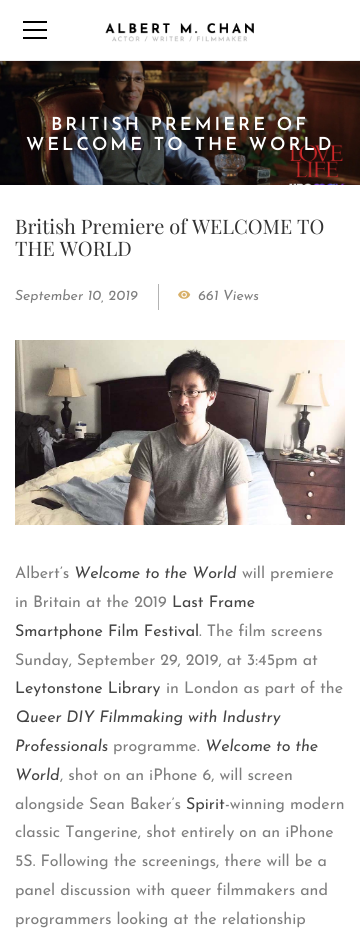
import math
import cairo

surface = cairo.ImageSurface(cairo.FORMAT_RGB24, 360, 929)
ctx = cairo.Context(surface)
options = cairo.FontOptions()
options.set_hint_metrics(cairo.HINT_METRICS_OFF)
options.set_hint_style(cairo.HINT_STYLE_NONE)
ctx.set_font_options(options)
ctx.set_miter_limit(4)


def spaced_text(x, y, s, letter, word):
    ctx.move_to(x, y)
    for ch in s:
        ctx.show_text(ch)
        ctx.rel_move_to(letter + word * (ch == ' '), 0)


def picture(path, x, y, w, h):
    ctx.save()
    ctx.set_source_surface(cairo.ImageSurface.create_from_png(path), x, y)
    ctx.rectangle(x, y, w, h)
    ctx.fill()
    ctx.restore()


ctx.set_source_rgb(1, 1, 1)
ctx.paint()
ctx.set_source_rgb(0.929, 0.929, 0.929)
ctx.rectangle(0, 60, 360, 1)
ctx.fill()
ctx.set_source_rgb(0, 0, 0)
ctx.rectangle(23, 21, 24, 2)
ctx.fill()
ctx.rectangle(23, 29, 24, 2)
ctx.fill()
ctx.rectangle(23, 37, 24, 2)
ctx.fill()
picture("img1.png", 105, 23, 149, 19)
picture("img2.png", 0, 61, 360, 124)
ctx.select_font_face("Josefin Sans SemiBold")
ctx.set_font_size(18)
ctx.set_source_rgb(1, 1, 1)
spaced_text(51, 130, "BRITISH PREMIERE OF", 3, 0)
spaced_text(26, 150, "WELCOME TO THE WORLD", 3, 0)
ctx.select_font_face("Playfair Display")
ctx.set_font_size(20)
ctx.set_source_rgb(0.2, 0.2, 0.2)
ctx.move_to(15, 234)
ctx.show_text("British Premiere of WELCOME TO")
ctx.move_to(15, 256)
ctx.show_text("THE WORLD")
ctx.set_source_rgb(0.702, 0.702, 0.702)
ctx.rectangle(158, 284, 1, 26)
ctx.fill()
ctx.select_font_face("Josefin Sans", cairo.FONT_SLANT_ITALIC)
ctx.set_font_size(14)
ctx.set_source_rgb(0.494, 0.494, 0.494)
ctx.move_to(15, 300)
ctx.show_text("September 10, 2019")
picture("img3.png", 178, 290, 13, 9)
ctx.move_to(198, 300)
ctx.show_text("661 Views")
picture("img4.png", 15, 340, 330, 185)
ctx.select_font_face("Josefin Sans")
ctx.set_font_size(16)
ctx.move_to(15, 578)
ctx.show_text("Albert’s")
ctx.select_font_face("Josefin Sans", cairo.FONT_SLANT_ITALIC)
ctx.set_source_rgb(0.267, 0.267, 0.267)
ctx.move_to(74, 578)
ctx.show_text("Welcome to the World")
ctx.select_font_face("Josefin Sans")
ctx.set_source_rgb(0.494, 0.494, 0.494)
ctx.move_to(242, 578)
ctx.show_text("will premiere")
ctx.move_to(15, 607)
ctx.show_text("in Britain at the 2019")
ctx.set_source_rgb(0.267, 0.267, 0.267)
ctx.move_to(172, 607)
ctx.show_text("Last Frame")
ctx.move_to(15, 636)
ctx.show_text("Smartphone Film Festival")
ctx.set_source_rgb(0.494, 0.494, 0.494)
ctx.move_to(199, 636)
ctx.show_text(". The film screens")
ctx.move_to(15, 665)
ctx.show_text("Sunday, September 29, 2019, at 3:45pm at")
ctx.set_source_rgb(0.267, 0.267, 0.267)
ctx.move_to(15, 693)
ctx.show_text("Leytonstone Library")
ctx.set_source_rgb(0.494, 0.494, 0.494)
ctx.move_to(166, 693)
ctx.show_text("in London as part of the")
ctx.select_font_face("Josefin Sans", cairo.FONT_SLANT_ITALIC)
ctx.set_source_rgb(0.267, 0.267, 0.267)
ctx.move_to(15, 722)
ctx.show_text("Queer DIY Filmmaking with Industry")
ctx.move_to(15, 751)
ctx.show_text("Professionals")
ctx.select_font_face("Josefin Sans")
ctx.set_source_rgb(0.494, 0.494, 0.494)
ctx.move_to(113, 751)
ctx.show_text("programme.")
ctx.select_font_face("Josefin Sans", cairo.FONT_SLANT_ITALIC)
ctx.set_source_rgb(0.267, 0.267, 0.267)
ctx.move_to(205, 751)
ctx.show_text("Welcome to the")
ctx.move_to(15, 780)
ctx.show_text("World")
ctx.select_font_face("Josefin Sans")
ctx.set_source_rgb(0.494, 0.494, 0.494)
ctx.move_to(60, 780)
ctx.show_text(", shot on an iPhone 6, will screen")
ctx.move_to(15, 809)
ctx.show_text("alongside Sean Baker’s")
ctx.set_source_rgb(0.267, 0.267, 0.267)
ctx.move_to(186, 809)
ctx.show_text("Spirit")
ctx.set_source_rgb(0.494, 0.494, 0.494)
ctx.move_to(225, 809)
ctx.show_text("-winning modern")
ctx.move_to(15, 837)
ctx.show_text("classic Tangerine, shot entirely on an iPhone")
ctx.move_to(15, 866)
ctx.show_text("5S. Following the screenings, there will be a")
ctx.move_to(15, 895)
ctx.show_text("panel discussion with queer filmmakers and")
ctx.move_to(15, 924)
ctx.show_text("programmers looking at the relationship")
surface.write_to_png("page.png")
